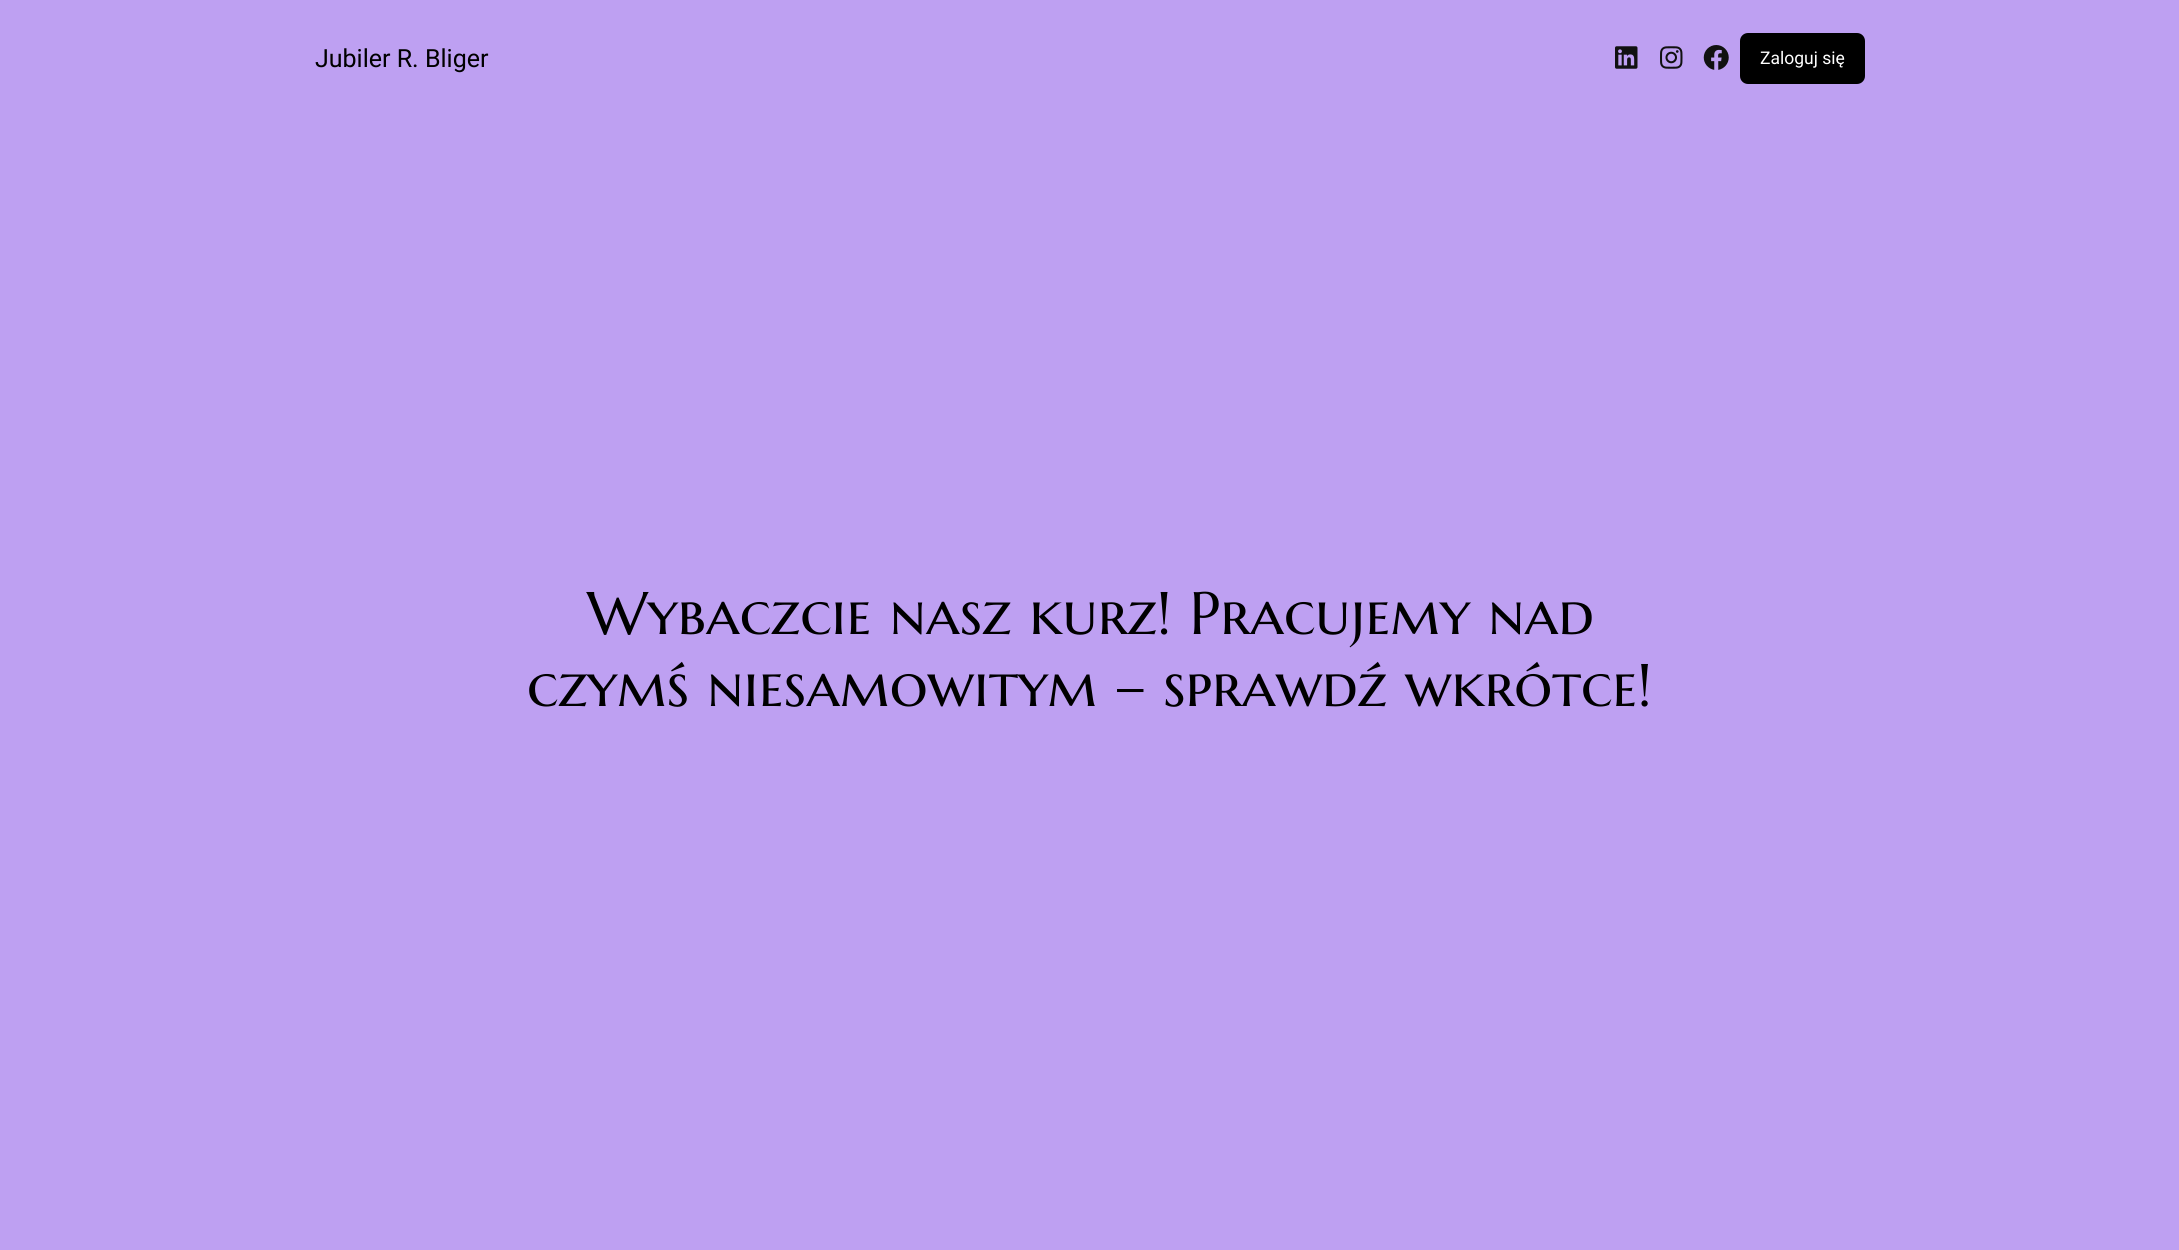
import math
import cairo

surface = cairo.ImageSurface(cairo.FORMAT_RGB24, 2179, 1250)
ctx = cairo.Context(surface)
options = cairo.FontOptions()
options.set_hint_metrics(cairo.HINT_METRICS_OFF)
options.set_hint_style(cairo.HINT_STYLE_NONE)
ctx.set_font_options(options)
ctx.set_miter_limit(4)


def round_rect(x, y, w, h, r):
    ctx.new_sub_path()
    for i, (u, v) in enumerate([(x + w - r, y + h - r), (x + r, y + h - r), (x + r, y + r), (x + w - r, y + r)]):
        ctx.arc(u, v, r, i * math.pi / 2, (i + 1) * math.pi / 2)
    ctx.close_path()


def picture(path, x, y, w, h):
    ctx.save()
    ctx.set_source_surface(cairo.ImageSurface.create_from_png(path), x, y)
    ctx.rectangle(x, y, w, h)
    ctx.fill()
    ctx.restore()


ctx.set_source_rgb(0.745, 0.627, 0.949)
ctx.paint()
ctx.select_font_face("Roboto")
ctx.set_font_size(25)
ctx.set_source_rgb(0, 0, 0)
ctx.move_to(315, 67)
ctx.show_text("Jubiler R. Bliger")
picture("img1.png", 1615, 46, 23, 23)
picture("img2.png", 1660, 46, 23, 23)
picture("img3.png", 1703, 45, 26, 25)
round_rect(1740, 33, 125, 51, 8)
ctx.fill()
ctx.set_font_size(17.5)
ctx.set_source_rgb(1, 1, 1)
ctx.move_to(1760, 64)
ctx.show_text("Zaloguj się")
ctx.select_font_face("Marcellus SC")
ctx.set_font_size(60)
ctx.set_source_rgb(0, 0, 0)
ctx.move_to(587, 634)
ctx.show_text("Wybaczcie nasz kurz! Pracujemy nad")
ctx.move_to(527, 706)
ctx.show_text("czymś niesamowitym – sprawdź wkrótce!")
surface.write_to_png("page.png")
